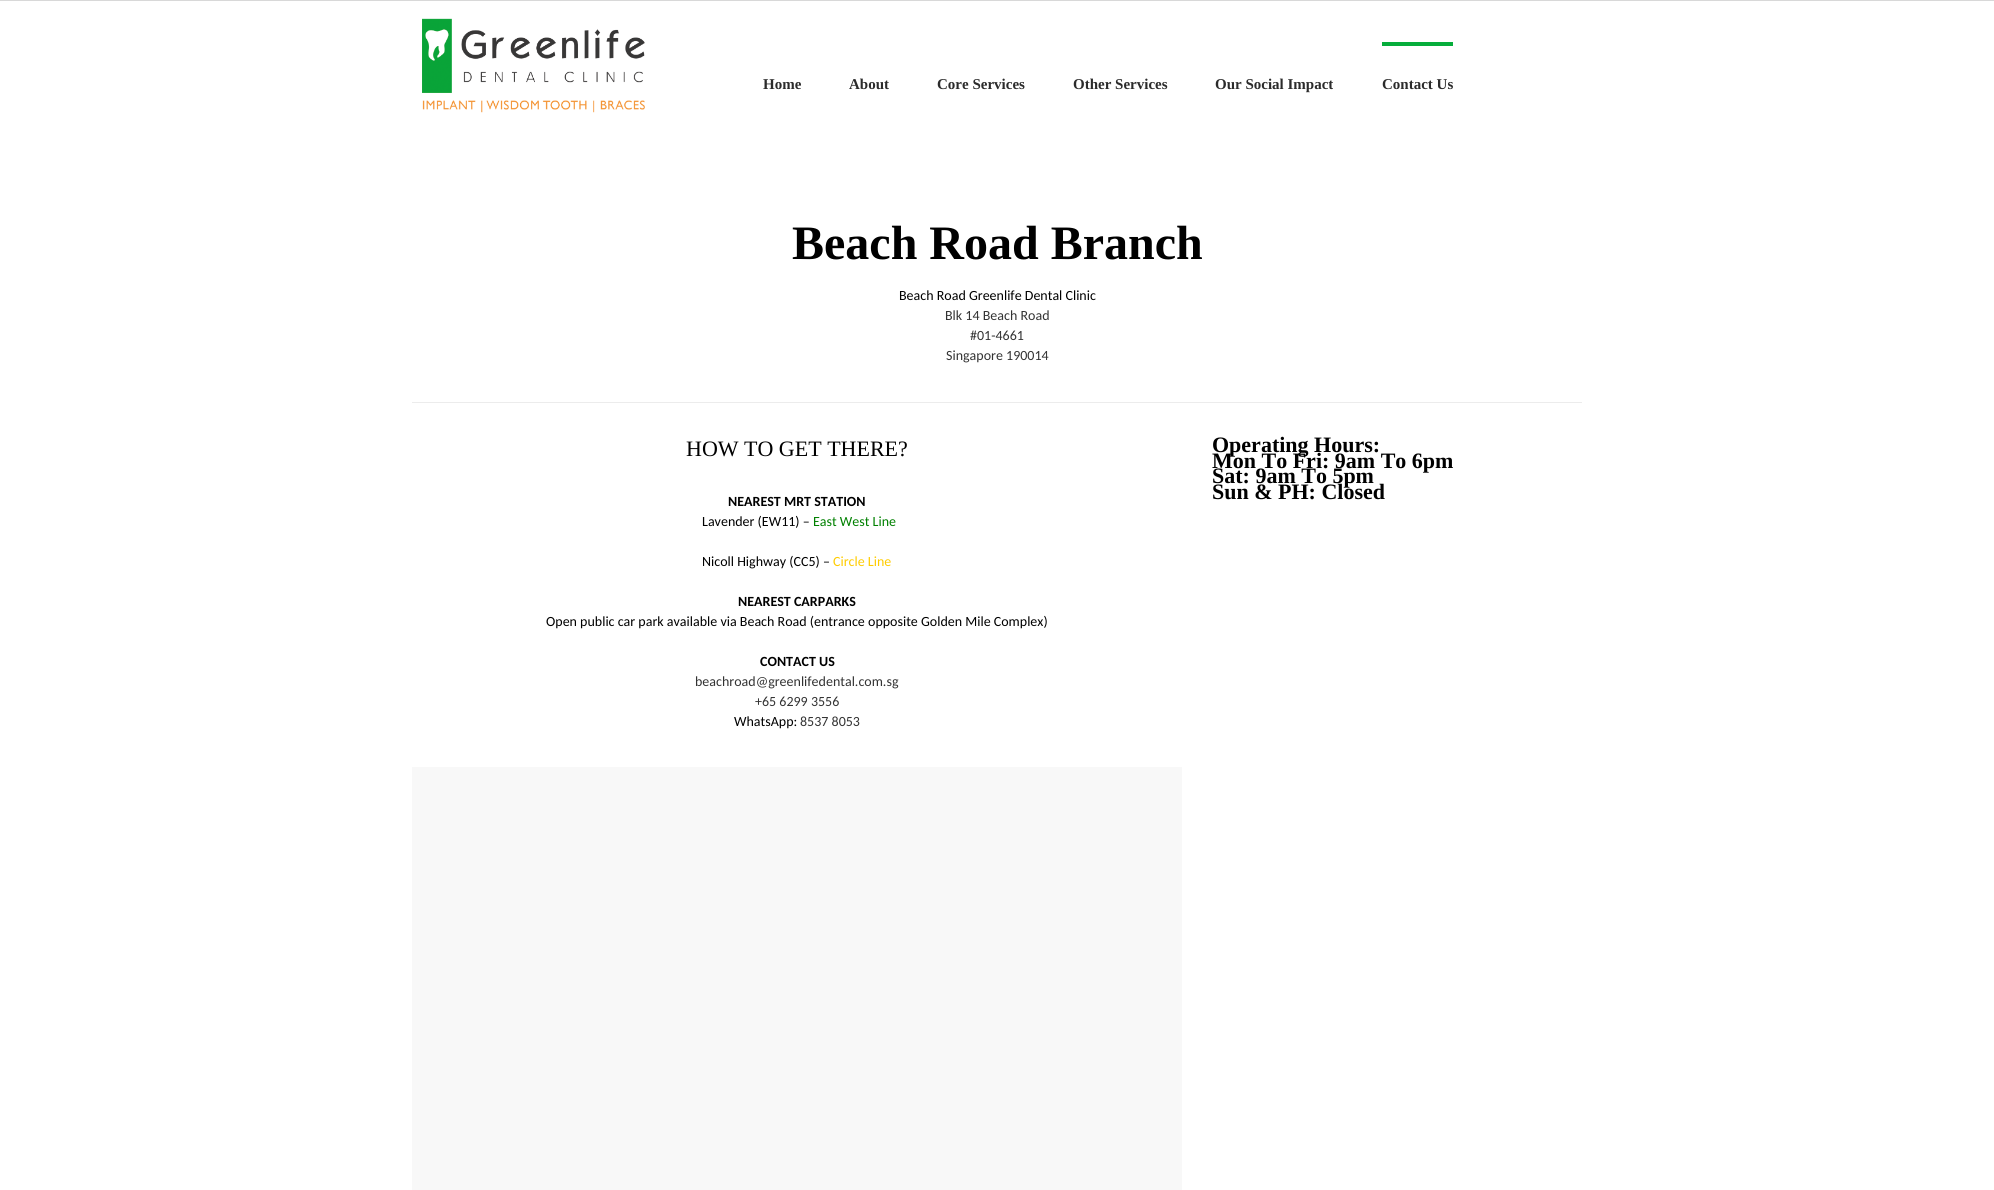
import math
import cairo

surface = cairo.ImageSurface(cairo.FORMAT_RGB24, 1994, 1190)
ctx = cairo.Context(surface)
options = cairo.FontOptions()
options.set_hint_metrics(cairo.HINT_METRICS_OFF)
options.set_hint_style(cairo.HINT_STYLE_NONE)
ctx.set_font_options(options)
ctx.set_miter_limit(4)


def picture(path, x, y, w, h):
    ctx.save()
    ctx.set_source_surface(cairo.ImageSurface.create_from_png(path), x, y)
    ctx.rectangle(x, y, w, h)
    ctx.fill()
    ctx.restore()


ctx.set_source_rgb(1, 1, 1)
ctx.paint()
ctx.set_source_rgb(0.847, 0.847, 0.847)
ctx.rectangle(0, 0, 1994, 1)
ctx.fill()
picture("img1.png", 422, 18, 223, 95)
ctx.select_font_face("Liberation Serif", cairo.FONT_SLANT_NORMAL, cairo.FONT_WEIGHT_BOLD)
ctx.set_font_size(15)
ctx.set_source_rgb(0.169, 0.169, 0.169)
ctx.move_to(763, 89)
ctx.show_text("Home")
ctx.move_to(849, 89)
ctx.show_text("About")
ctx.move_to(937, 89)
ctx.show_text("Core Services")
ctx.move_to(1073, 89)
ctx.show_text("Other Services")
ctx.move_to(1215, 89)
ctx.show_text("Our Social Impact")
ctx.set_source_rgb(0.024, 0.678, 0.231)
ctx.rectangle(1382, 42, 71, 4)
ctx.fill()
ctx.set_source_rgb(0.169, 0.169, 0.169)
ctx.move_to(1382, 89)
ctx.show_text("Contact Us")
ctx.set_font_size(48)
ctx.set_source_rgb(0, 0, 0)
ctx.move_to(792, 259)
ctx.show_text("Beach Road Branch")
ctx.select_font_face("Carlito")
ctx.set_font_size(14)
ctx.move_to(899, 300)
ctx.show_text("Beach Road Greenlife Dental Clinic")
ctx.set_source_rgb(0.2, 0.2, 0.2)
ctx.move_to(945, 320)
ctx.show_text("Blk 14 Beach Road")
ctx.move_to(970, 340)
ctx.show_text("#01-4661")
ctx.move_to(946, 360)
ctx.show_text("Singapore 190014")
ctx.set_source_rgb(0.922, 0.922, 0.922)
ctx.rectangle(412, 402, 1170, 1)
ctx.fill()
ctx.select_font_face("Liberation Serif")
ctx.set_font_size(22)
ctx.set_source_rgb(0, 0, 0)
ctx.move_to(686, 456)
ctx.show_text("HOW TO GET THERE?")
ctx.select_font_face("Carlito", cairo.FONT_SLANT_NORMAL, cairo.FONT_WEIGHT_BOLD)
ctx.set_font_size(14)
ctx.move_to(728, 506)
ctx.show_text("NEAREST MRT STATION")
ctx.select_font_face("Carlito")
ctx.move_to(702, 526)
ctx.show_text("Lavender (EW11) –")
ctx.set_source_rgb(0, 0.502, 0)
ctx.move_to(813, 526)
ctx.show_text("East West Line")
ctx.set_source_rgb(0, 0, 0)
ctx.move_to(702, 566)
ctx.show_text("Nicoll Highway (CC5) –")
ctx.set_source_rgb(1, 0.8, 0)
ctx.move_to(833, 566)
ctx.show_text("Circle Line")
ctx.select_font_face("Carlito", cairo.FONT_SLANT_NORMAL, cairo.FONT_WEIGHT_BOLD)
ctx.set_source_rgb(0, 0, 0)
ctx.move_to(738, 606)
ctx.show_text("NEAREST CARPARKS")
ctx.select_font_face("Carlito")
ctx.move_to(546, 626)
ctx.show_text("Open public car park available via Beach Road (entrance opposite Golden Mile Complex)")
ctx.select_font_face("Carlito", cairo.FONT_SLANT_NORMAL, cairo.FONT_WEIGHT_BOLD)
ctx.move_to(760, 666)
ctx.show_text("CONTACT US")
ctx.select_font_face("Carlito")
ctx.set_source_rgb(0.2, 0.2, 0.2)
ctx.move_to(695, 686)
ctx.show_text("beachroad@greenlifedental.com.sg")
ctx.move_to(755, 706)
ctx.show_text("+65 6299 3556")
ctx.set_source_rgb(0, 0, 0)
ctx.move_to(734, 726)
ctx.show_text("WhatsApp:")
ctx.set_source_rgb(0.2, 0.2, 0.2)
ctx.move_to(800, 726)
ctx.show_text("8537 8053")
ctx.set_source_rgb(0.969, 0.969, 0.969)
ctx.rectangle(412, 767, 770, 423)
ctx.fill()
ctx.select_font_face("Liberation Serif", cairo.FONT_SLANT_NORMAL, cairo.FONT_WEIGHT_BOLD)
ctx.set_font_size(22)
ctx.set_source_rgb(0, 0, 0)
ctx.move_to(1212, 452)
ctx.show_text("Operating Hours:")
ctx.move_to(1212, 468)
ctx.show_text("Mon To Fri: 9am To 6pm")
ctx.move_to(1212, 483)
ctx.show_text("Sat: 9am To 5pm")
ctx.move_to(1212, 499)
ctx.show_text("Sun & PH: Closed")
surface.write_to_png("page.png")
